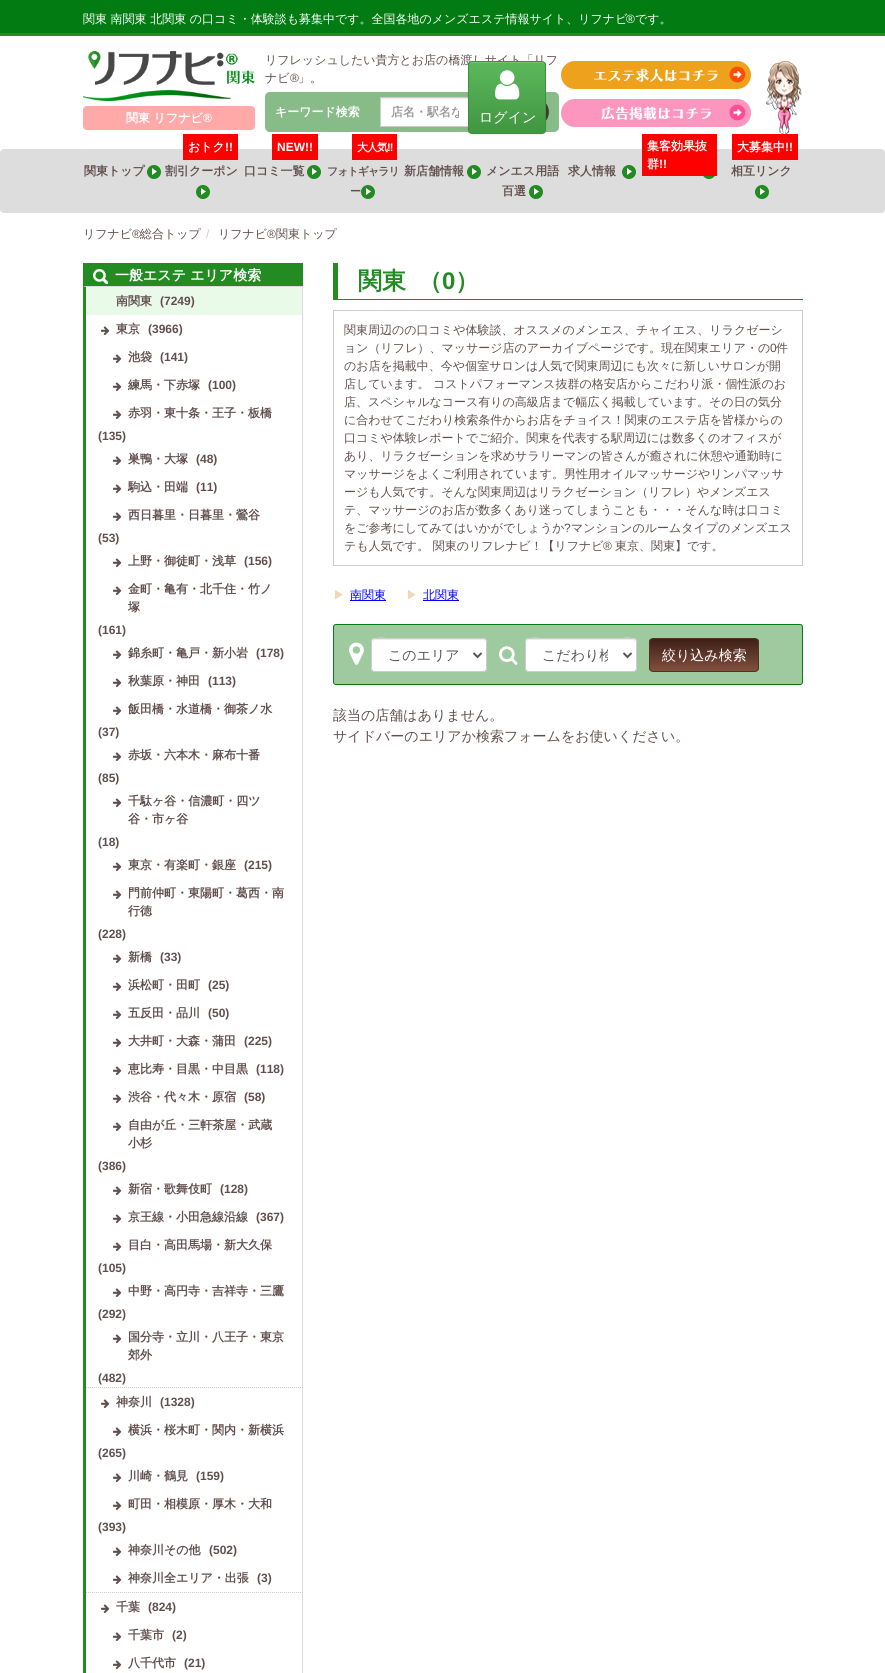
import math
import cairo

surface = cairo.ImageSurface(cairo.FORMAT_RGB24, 885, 1673)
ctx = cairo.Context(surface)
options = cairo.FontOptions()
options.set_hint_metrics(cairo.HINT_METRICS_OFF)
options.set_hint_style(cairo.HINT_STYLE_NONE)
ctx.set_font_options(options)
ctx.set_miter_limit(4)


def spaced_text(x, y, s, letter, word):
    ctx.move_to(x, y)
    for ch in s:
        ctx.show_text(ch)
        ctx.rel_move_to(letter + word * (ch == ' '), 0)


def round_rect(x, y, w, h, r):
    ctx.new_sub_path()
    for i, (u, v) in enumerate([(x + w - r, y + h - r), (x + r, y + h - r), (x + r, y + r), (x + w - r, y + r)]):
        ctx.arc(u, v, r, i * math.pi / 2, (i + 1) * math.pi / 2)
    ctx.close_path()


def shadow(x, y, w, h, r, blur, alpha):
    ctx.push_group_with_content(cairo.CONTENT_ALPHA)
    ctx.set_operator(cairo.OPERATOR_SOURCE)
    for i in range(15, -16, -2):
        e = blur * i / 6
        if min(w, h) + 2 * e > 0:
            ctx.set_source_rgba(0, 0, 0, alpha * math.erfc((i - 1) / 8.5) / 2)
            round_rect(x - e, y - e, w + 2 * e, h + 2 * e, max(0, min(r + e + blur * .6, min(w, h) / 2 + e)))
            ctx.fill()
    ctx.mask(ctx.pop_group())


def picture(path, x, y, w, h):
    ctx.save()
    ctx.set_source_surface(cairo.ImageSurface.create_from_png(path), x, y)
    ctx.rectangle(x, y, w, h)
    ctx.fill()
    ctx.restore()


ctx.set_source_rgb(1, 1, 1)
ctx.paint()
ctx.set_source_rgb(0.008, 0.482, 0.071)
ctx.rectangle(0, 0, 885, 33)
ctx.fill()
ctx.select_font_face("WenQuanYi Zen Hei Medium")
ctx.set_font_size(12)
ctx.set_source_rgb(1, 1, 1)
ctx.move_to(83, 23)
ctx.show_text("関東 南関東 北関東 の口コミ・体験談も募集中です。全国各地のメンズエステ情報サイト、リフナビ")
ctx.select_font_face("Liberation Sans")
ctx.move_to(626, 23)
ctx.show_text("®")
ctx.select_font_face("WenQuanYi Zen Hei Medium")
ctx.move_to(635, 23)
ctx.show_text("です。")
ctx.set_source_rgb(0.133, 0.545, 0.133)
ctx.rectangle(0, 33, 885, 3)
ctx.fill()
ctx.set_source_rgb(0.38, 0.31, 0.31)
ctx.move_to(265, 64)
ctx.show_text("リフレッシュしたい貴方とお店の橋渡しサイト「リフ")
ctx.move_to(265, 82)
ctx.show_text("ナビ")
ctx.select_font_face("Liberation Sans")
ctx.move_to(290, 82)
ctx.show_text("®")
ctx.select_font_face("WenQuanYi Zen Hei Medium")
ctx.move_to(298, 82)
ctx.show_text("」。")
ctx.set_source_rgb(0.529, 0.733, 0.529)
round_rect(265, 92, 294, 40, 5)
ctx.fill()
ctx.select_font_face("WenQuanYi Zen Hei", cairo.FONT_SLANT_NORMAL, cairo.FONT_WEIGHT_BOLD)
ctx.set_source_rgb(1, 1, 1)
ctx.move_to(275, 116)
ctx.show_text("キーワード検索")
ctx.rectangle(381, 99, 87, 27)
ctx.fill()
ctx.set_source_rgb(0.925, 0.925, 0.925)
ctx.rectangle(381, 98, 92, 1)
ctx.fill()
ctx.rectangle(380.5, 97.5, 93, 29)
ctx.set_source_rgb(0.8, 0.8, 0.8)
ctx.set_line_width(1)
ctx.stroke()
ctx.save()
ctx.rectangle(391, 104, 68, 17)
ctx.clip()
ctx.set_source_rgb(0.6, 0.6, 0.6)
ctx.move_to(391, 116)
ctx.show_text("店名・駅名な")
ctx.restore()
ctx.set_source_rgb(0.278, 0.231, 0.188)
round_rect(485, 98, 64, 28, 14)
ctx.fill()
picture("img1.png", 83, 51, 172, 50)
ctx.set_source_rgb(1, 0.663, 0.663)
round_rect(83, 106, 172, 24, 4)
ctx.fill()
ctx.set_source_rgb(1, 1, 1)
ctx.move_to(126, 122)
ctx.show_text("関東 リフナビ")
ctx.select_font_face("Liberation Sans", cairo.FONT_SLANT_NORMAL, cairo.FONT_WEIGHT_BOLD)
ctx.move_to(203, 122)
ctx.show_text("®")
ctx.set_source_rgb(0, 0, 0)
shadow(468, 62, 78, 73, 4, 0.5, 0.07)
ctx.save()
round_rect(468, 61, 78, 73, 4)
ctx.clip()
gradient = cairo.LinearGradient(507, 62, 507, 133)
gradient.add_color_stop_rgba(0, 0.361, 0.722, 0.361, 1)
gradient.add_color_stop_rgba(1, 0.255, 0.588, 0.255, 1)
ctx.set_source(gradient)
ctx.rectangle(468, 62, 78, 71)
ctx.fill()
ctx.restore()
ctx.set_source_rgb(0.455, 0.765, 0.455)
ctx.new_path()
ctx.move_to(472, 63)
ctx.line_to(542, 63)
ctx.curve_to(544, 63, 545, 64, 545, 66)
ctx.curve_to(545, 59, 534, 62, 530, 62)
ctx.line_to(484, 62)
ctx.curve_to(480, 62, 469, 59, 469, 66)
ctx.curve_to(469, 64, 470, 63, 472, 63)
ctx.close_path()
ctx.fill()
round_rect(468.5, 61.5, 77, 72, 3.5)
ctx.set_source_rgb(0.243, 0.561, 0.243)
ctx.stroke()
picture("img2.png", 495, 70, 25, 30)
ctx.select_font_face("WenQuanYi Zen Hei Medium")
ctx.set_font_size(14)
ctx.set_source_rgb(1, 1, 1)
ctx.move_to(479, 122)
ctx.show_text("ログイン")
picture("img3.png", 561, 61, 190, 28)
picture("img4.png", 561, 99, 190, 28)
picture("img5.png", 766, 61, 36, 73)
ctx.set_source_rgb(0.867, 0.867, 0.867)
round_rect(0, 149, 885, 64, 4)
ctx.fill()
ctx.select_font_face("WenQuanYi Zen Hei", cairo.FONT_SLANT_NORMAL, cairo.FONT_WEIGHT_BOLD)
ctx.set_font_size(12)
ctx.set_source_rgb(0.38, 0.31, 0.31)
ctx.move_to(84, 175)
ctx.show_text("関東トップ")
picture("img6.png", 147, 165, 14, 14)
ctx.set_source_rgb(1, 0, 0)
ctx.rectangle(183, 134, 55, 26)
ctx.fill()
ctx.set_source_rgb(1, 1, 1)
ctx.move_to(188, 151)
ctx.show_text("おトク")
ctx.select_font_face("Liberation Sans", cairo.FONT_SLANT_NORMAL, cairo.FONT_WEIGHT_BOLD)
ctx.move_to(225, 151)
ctx.show_text("!!")
ctx.select_font_face("WenQuanYi Zen Hei", cairo.FONT_SLANT_NORMAL, cairo.FONT_WEIGHT_BOLD)
ctx.set_source_rgb(0.38, 0.31, 0.31)
ctx.move_to(165, 175)
ctx.show_text("割引クーポン")
picture("img6.png", 196, 185, 14, 14)
ctx.set_source_rgb(1, 0, 0)
ctx.rectangle(272, 134, 46, 26)
ctx.fill()
ctx.select_font_face("Liberation Sans", cairo.FONT_SLANT_NORMAL, cairo.FONT_WEIGHT_BOLD)
ctx.set_source_rgb(1, 1, 1)
ctx.move_to(277, 151)
ctx.show_text("NEW!!")
ctx.select_font_face("WenQuanYi Zen Hei", cairo.FONT_SLANT_NORMAL, cairo.FONT_WEIGHT_BOLD)
ctx.set_source_rgb(0.38, 0.31, 0.31)
ctx.move_to(244, 175)
ctx.show_text("口コミ一覧")
picture("img6.png", 307, 165, 14, 14)
ctx.set_source_rgb(1, 0, 0)
ctx.rectangle(352, 134, 45, 26)
ctx.fill()
ctx.set_font_size(11)
ctx.set_source_rgb(1, 1, 1)
spaced_text(357, 151, "大人気", -1, 0)
ctx.select_font_face("Liberation Sans", cairo.FONT_SLANT_NORMAL, cairo.FONT_WEIGHT_BOLD)
spaced_text(387, 151, "!!", -1, 0)
ctx.select_font_face("WenQuanYi Zen Hei", cairo.FONT_SLANT_NORMAL, cairo.FONT_WEIGHT_BOLD)
ctx.set_source_rgb(0.38, 0.31, 0.31)
spaced_text(327, 175, "フォトギャラリ", -1, 0)
spaced_text(350, 195, "ー", -1, 0)
picture("img6.png", 361, 185, 14, 14)
ctx.set_font_size(12)
ctx.move_to(404, 175)
ctx.show_text("新店舗情報")
picture("img6.png", 467, 165, 14, 14)
ctx.move_to(486, 175)
ctx.show_text("メンエス用語")
ctx.move_to(502, 195)
ctx.show_text("百選")
picture("img6.png", 529, 185, 14, 14)
ctx.move_to(568, 175)
ctx.show_text("求人情報")
picture("img6.png", 622, 165, 14, 14)
ctx.set_source_rgb(1, 0, 0)
ctx.rectangle(642, 134, 75, 42)
ctx.fill()
ctx.set_source_rgb(1, 1, 1)
ctx.move_to(647, 150)
ctx.show_text("集客効果抜")
ctx.move_to(647, 168)
ctx.show_text("群")
ctx.select_font_face("Liberation Sans", cairo.FONT_SLANT_NORMAL, cairo.FONT_WEIGHT_BOLD)
ctx.move_to(659, 168)
ctx.show_text("!!")
picture("img7.png", 703, 176, 12, 3)
ctx.set_source_rgb(1, 0, 0)
ctx.rectangle(732, 134, 66, 26)
ctx.fill()
ctx.select_font_face("WenQuanYi Zen Hei", cairo.FONT_SLANT_NORMAL, cairo.FONT_WEIGHT_BOLD)
ctx.set_source_rgb(1, 1, 1)
ctx.move_to(737, 151)
ctx.show_text("大募集中")
ctx.select_font_face("Liberation Sans", cairo.FONT_SLANT_NORMAL, cairo.FONT_WEIGHT_BOLD)
ctx.move_to(785, 151)
ctx.show_text("!!")
ctx.select_font_face("WenQuanYi Zen Hei", cairo.FONT_SLANT_NORMAL, cairo.FONT_WEIGHT_BOLD)
ctx.set_source_rgb(0.38, 0.31, 0.31)
ctx.move_to(731, 175)
ctx.show_text("相互リンク")
picture("img6.png", 755, 185, 14, 14)
ctx.select_font_face("WenQuanYi Zen Hei Medium")
ctx.move_to(83, 238)
ctx.show_text("リフナビ")
ctx.select_font_face("Liberation Sans")
ctx.move_to(132, 238)
ctx.show_text("®")
ctx.select_font_face("WenQuanYi Zen Hei Medium")
ctx.move_to(140, 238)
ctx.show_text("総合トップ")
ctx.select_font_face("Liberation Sans")
ctx.set_source_rgb(0.8, 0.8, 0.8)
ctx.move_to(206, 238)
ctx.show_text("/")
ctx.select_font_face("WenQuanYi Zen Hei Medium")
ctx.set_source_rgb(0.38, 0.31, 0.31)
ctx.move_to(218, 238)
ctx.show_text("リフナビ")
ctx.select_font_face("Liberation Sans")
ctx.move_to(267, 238)
ctx.show_text("®")
ctx.select_font_face("WenQuanYi Zen Hei Medium")
ctx.move_to(276, 238)
ctx.show_text("関東トップ")
ctx.set_source_rgb(0.133, 0.545, 0.133)
ctx.rectangle(83, 263, 220, 23)
ctx.fill()
ctx.set_source_rgb(0, 0, 0)
shadow(83, 287, 220, 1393, 4, 1, 0.07)
picture("img8.png", 93, 269, 15, 15)
ctx.select_font_face("WenQuanYi Zen Hei", cairo.FONT_SLANT_NORMAL, cairo.FONT_WEIGHT_BOLD)
ctx.set_font_size(14)
ctx.set_source_rgb(1, 1, 1)
ctx.move_to(115, 280)
ctx.show_text("一般エステ エリア検索")
ctx.set_source_rgb(0.914, 0.98, 0.914)
ctx.rectangle(86, 287, 216, 28)
ctx.fill()
ctx.set_source_rgb(0.867, 0.867, 0.867)
ctx.new_path()
ctx.move_to(83, 286)
ctx.line_to(303, 286)
ctx.line_to(302, 287)
ctx.line_to(86, 287)
ctx.close_path()
ctx.fill()
ctx.rectangle(302, 286, 1, 1387)
ctx.fill()
ctx.set_source_rgb(0.133, 0.545, 0.133)
ctx.new_path()
ctx.move_to(83, 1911)
ctx.line_to(83, 286)
ctx.line_to(86, 287)
ctx.line_to(86, 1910)
ctx.close_path()
ctx.fill()
ctx.set_font_size(12)
ctx.set_source_rgb(0.38, 0.31, 0.31)
ctx.move_to(116, 305)
ctx.show_text("南関東")
ctx.select_font_face("Liberation Sans", cairo.FONT_SLANT_NORMAL, cairo.FONT_WEIGHT_BOLD)
ctx.move_to(160, 305)
ctx.show_text("(7249)")
ctx.set_source_rgb(1, 1, 1)
ctx.rectangle(86, 315, 216, 1358)
ctx.fill()
ctx.new_path()
ctx.move_to(86, 1387.5)
ctx.line_to(302, 1387.5)
ctx.set_source_rgb(0.8, 0.8, 0.8)
ctx.set_dash([1, 1])
ctx.stroke()
picture("img9.png", 101, 326, 9, 10)
ctx.select_font_face("WenQuanYi Zen Hei", cairo.FONT_SLANT_NORMAL, cairo.FONT_WEIGHT_BOLD)
ctx.set_source_rgb(0.38, 0.31, 0.31)
ctx.move_to(116, 333)
ctx.show_text("東京")
ctx.select_font_face("Liberation Sans", cairo.FONT_SLANT_NORMAL, cairo.FONT_WEIGHT_BOLD)
ctx.move_to(148, 333)
ctx.show_text("(3966)")
picture("img9.png", 113, 354, 9, 10)
ctx.select_font_face("WenQuanYi Zen Hei", cairo.FONT_SLANT_NORMAL, cairo.FONT_WEIGHT_BOLD)
ctx.move_to(128, 361)
ctx.show_text("池袋")
ctx.select_font_face("Liberation Sans", cairo.FONT_SLANT_NORMAL, cairo.FONT_WEIGHT_BOLD)
ctx.move_to(160, 361)
ctx.show_text("(141)")
picture("img9.png", 113, 382, 9, 10)
ctx.select_font_face("WenQuanYi Zen Hei", cairo.FONT_SLANT_NORMAL, cairo.FONT_WEIGHT_BOLD)
ctx.move_to(128, 389)
ctx.show_text("練馬・下赤塚")
ctx.select_font_face("Liberation Sans", cairo.FONT_SLANT_NORMAL, cairo.FONT_WEIGHT_BOLD)
ctx.move_to(208, 389)
ctx.show_text("(100)")
picture("img9.png", 113, 410, 9, 10)
ctx.select_font_face("WenQuanYi Zen Hei", cairo.FONT_SLANT_NORMAL, cairo.FONT_WEIGHT_BOLD)
ctx.move_to(128, 417)
ctx.show_text("赤羽・東十条・王子・板橋")
ctx.select_font_face("Liberation Sans", cairo.FONT_SLANT_NORMAL, cairo.FONT_WEIGHT_BOLD)
ctx.move_to(98, 440)
ctx.show_text("(135)")
picture("img9.png", 113, 456, 9, 10)
ctx.select_font_face("WenQuanYi Zen Hei", cairo.FONT_SLANT_NORMAL, cairo.FONT_WEIGHT_BOLD)
ctx.move_to(128, 463)
ctx.show_text("巣鴨・大塚")
ctx.select_font_face("Liberation Sans", cairo.FONT_SLANT_NORMAL, cairo.FONT_WEIGHT_BOLD)
ctx.move_to(196, 463)
ctx.show_text("(48)")
picture("img9.png", 113, 484, 9, 10)
ctx.select_font_face("WenQuanYi Zen Hei", cairo.FONT_SLANT_NORMAL, cairo.FONT_WEIGHT_BOLD)
ctx.move_to(128, 491)
ctx.show_text("駒込・田端")
ctx.select_font_face("Liberation Sans", cairo.FONT_SLANT_NORMAL, cairo.FONT_WEIGHT_BOLD)
ctx.move_to(196, 491)
ctx.show_text("(11)")
picture("img9.png", 113, 512, 9, 10)
ctx.select_font_face("WenQuanYi Zen Hei", cairo.FONT_SLANT_NORMAL, cairo.FONT_WEIGHT_BOLD)
ctx.move_to(128, 519)
ctx.show_text("西日暮里・日暮里・鶯谷")
ctx.select_font_face("Liberation Sans", cairo.FONT_SLANT_NORMAL, cairo.FONT_WEIGHT_BOLD)
ctx.move_to(98, 542)
ctx.show_text("(53)")
picture("img9.png", 113, 558, 9, 10)
ctx.select_font_face("WenQuanYi Zen Hei", cairo.FONT_SLANT_NORMAL, cairo.FONT_WEIGHT_BOLD)
ctx.move_to(128, 565)
ctx.show_text("上野・御徒町・浅草")
ctx.select_font_face("Liberation Sans", cairo.FONT_SLANT_NORMAL, cairo.FONT_WEIGHT_BOLD)
ctx.move_to(244, 565)
ctx.show_text("(156)")
picture("img9.png", 113, 586, 9, 10)
ctx.select_font_face("WenQuanYi Zen Hei", cairo.FONT_SLANT_NORMAL, cairo.FONT_WEIGHT_BOLD)
ctx.move_to(128, 593)
ctx.show_text("金町・亀有・北千住・竹ノ")
ctx.move_to(128, 611)
ctx.show_text("塚")
ctx.select_font_face("Liberation Sans", cairo.FONT_SLANT_NORMAL, cairo.FONT_WEIGHT_BOLD)
ctx.move_to(98, 634)
ctx.show_text("(161)")
picture("img9.png", 113, 650, 9, 10)
ctx.select_font_face("WenQuanYi Zen Hei", cairo.FONT_SLANT_NORMAL, cairo.FONT_WEIGHT_BOLD)
ctx.move_to(128, 657)
ctx.show_text("錦糸町・亀戸・新小岩")
ctx.select_font_face("Liberation Sans", cairo.FONT_SLANT_NORMAL, cairo.FONT_WEIGHT_BOLD)
ctx.move_to(256, 657)
ctx.show_text("(178)")
picture("img9.png", 113, 678, 9, 10)
ctx.select_font_face("WenQuanYi Zen Hei", cairo.FONT_SLANT_NORMAL, cairo.FONT_WEIGHT_BOLD)
ctx.move_to(128, 685)
ctx.show_text("秋葉原・神田")
ctx.select_font_face("Liberation Sans", cairo.FONT_SLANT_NORMAL, cairo.FONT_WEIGHT_BOLD)
ctx.move_to(208, 685)
ctx.show_text("(113)")
picture("img9.png", 113, 706, 9, 10)
ctx.select_font_face("WenQuanYi Zen Hei", cairo.FONT_SLANT_NORMAL, cairo.FONT_WEIGHT_BOLD)
ctx.move_to(128, 713)
ctx.show_text("飯田橋・水道橋・御茶ノ水")
ctx.select_font_face("Liberation Sans", cairo.FONT_SLANT_NORMAL, cairo.FONT_WEIGHT_BOLD)
ctx.move_to(98, 736)
ctx.show_text("(37)")
picture("img9.png", 113, 752, 9, 10)
ctx.select_font_face("WenQuanYi Zen Hei", cairo.FONT_SLANT_NORMAL, cairo.FONT_WEIGHT_BOLD)
ctx.move_to(128, 759)
ctx.show_text("赤坂・六本木・麻布十番")
ctx.select_font_face("Liberation Sans", cairo.FONT_SLANT_NORMAL, cairo.FONT_WEIGHT_BOLD)
ctx.move_to(98, 782)
ctx.show_text("(85)")
picture("img9.png", 113, 798, 9, 10)
ctx.select_font_face("WenQuanYi Zen Hei", cairo.FONT_SLANT_NORMAL, cairo.FONT_WEIGHT_BOLD)
ctx.move_to(128, 805)
ctx.show_text("千駄ヶ谷・信濃町・四ツ")
ctx.move_to(128, 823)
ctx.show_text("谷・市ヶ谷")
ctx.select_font_face("Liberation Sans", cairo.FONT_SLANT_NORMAL, cairo.FONT_WEIGHT_BOLD)
ctx.move_to(98, 846)
ctx.show_text("(18)")
picture("img9.png", 113, 862, 9, 10)
ctx.select_font_face("WenQuanYi Zen Hei", cairo.FONT_SLANT_NORMAL, cairo.FONT_WEIGHT_BOLD)
ctx.move_to(128, 869)
ctx.show_text("東京・有楽町・銀座")
ctx.select_font_face("Liberation Sans", cairo.FONT_SLANT_NORMAL, cairo.FONT_WEIGHT_BOLD)
ctx.move_to(244, 869)
ctx.show_text("(215)")
picture("img9.png", 113, 890, 9, 10)
ctx.select_font_face("WenQuanYi Zen Hei", cairo.FONT_SLANT_NORMAL, cairo.FONT_WEIGHT_BOLD)
ctx.move_to(128, 897)
ctx.show_text("門前仲町・東陽町・葛西・南")
ctx.move_to(128, 915)
ctx.show_text("行徳")
ctx.select_font_face("Liberation Sans", cairo.FONT_SLANT_NORMAL, cairo.FONT_WEIGHT_BOLD)
ctx.move_to(98, 938)
ctx.show_text("(228)")
picture("img9.png", 113, 954, 9, 10)
ctx.select_font_face("WenQuanYi Zen Hei", cairo.FONT_SLANT_NORMAL, cairo.FONT_WEIGHT_BOLD)
ctx.move_to(128, 961)
ctx.show_text("新橋")
ctx.select_font_face("Liberation Sans", cairo.FONT_SLANT_NORMAL, cairo.FONT_WEIGHT_BOLD)
ctx.move_to(160, 961)
ctx.show_text("(33)")
picture("img9.png", 113, 982, 9, 10)
ctx.select_font_face("WenQuanYi Zen Hei", cairo.FONT_SLANT_NORMAL, cairo.FONT_WEIGHT_BOLD)
ctx.move_to(128, 989)
ctx.show_text("浜松町・田町")
ctx.select_font_face("Liberation Sans", cairo.FONT_SLANT_NORMAL, cairo.FONT_WEIGHT_BOLD)
ctx.move_to(208, 989)
ctx.show_text("(25)")
picture("img9.png", 113, 1010, 9, 10)
ctx.select_font_face("WenQuanYi Zen Hei", cairo.FONT_SLANT_NORMAL, cairo.FONT_WEIGHT_BOLD)
ctx.move_to(128, 1017)
ctx.show_text("五反田・品川")
ctx.select_font_face("Liberation Sans", cairo.FONT_SLANT_NORMAL, cairo.FONT_WEIGHT_BOLD)
ctx.move_to(208, 1017)
ctx.show_text("(50)")
picture("img9.png", 113, 1038, 9, 10)
ctx.select_font_face("WenQuanYi Zen Hei", cairo.FONT_SLANT_NORMAL, cairo.FONT_WEIGHT_BOLD)
ctx.move_to(128, 1045)
ctx.show_text("大井町・大森・蒲田")
ctx.select_font_face("Liberation Sans", cairo.FONT_SLANT_NORMAL, cairo.FONT_WEIGHT_BOLD)
ctx.move_to(244, 1045)
ctx.show_text("(225)")
picture("img9.png", 113, 1066, 9, 10)
ctx.select_font_face("WenQuanYi Zen Hei", cairo.FONT_SLANT_NORMAL, cairo.FONT_WEIGHT_BOLD)
ctx.move_to(128, 1073)
ctx.show_text("恵比寿・目黒・中目黒")
ctx.select_font_face("Liberation Sans", cairo.FONT_SLANT_NORMAL, cairo.FONT_WEIGHT_BOLD)
ctx.move_to(256, 1073)
ctx.show_text("(118)")
picture("img9.png", 113, 1094, 9, 10)
ctx.select_font_face("WenQuanYi Zen Hei", cairo.FONT_SLANT_NORMAL, cairo.FONT_WEIGHT_BOLD)
ctx.move_to(128, 1101)
ctx.show_text("渋谷・代々木・原宿")
ctx.select_font_face("Liberation Sans", cairo.FONT_SLANT_NORMAL, cairo.FONT_WEIGHT_BOLD)
ctx.move_to(244, 1101)
ctx.show_text("(58)")
picture("img9.png", 113, 1122, 9, 10)
ctx.select_font_face("WenQuanYi Zen Hei", cairo.FONT_SLANT_NORMAL, cairo.FONT_WEIGHT_BOLD)
ctx.move_to(128, 1129)
ctx.show_text("自由が丘・三軒茶屋・武蔵")
ctx.move_to(128, 1147)
ctx.show_text("小杉")
ctx.select_font_face("Liberation Sans", cairo.FONT_SLANT_NORMAL, cairo.FONT_WEIGHT_BOLD)
ctx.move_to(98, 1170)
ctx.show_text("(386)")
picture("img9.png", 113, 1186, 9, 10)
ctx.select_font_face("WenQuanYi Zen Hei", cairo.FONT_SLANT_NORMAL, cairo.FONT_WEIGHT_BOLD)
ctx.move_to(128, 1193)
ctx.show_text("新宿・歌舞伎町")
ctx.select_font_face("Liberation Sans", cairo.FONT_SLANT_NORMAL, cairo.FONT_WEIGHT_BOLD)
ctx.move_to(220, 1193)
ctx.show_text("(128)")
picture("img9.png", 113, 1214, 9, 10)
ctx.select_font_face("WenQuanYi Zen Hei", cairo.FONT_SLANT_NORMAL, cairo.FONT_WEIGHT_BOLD)
ctx.move_to(128, 1221)
ctx.show_text("京王線・小田急線沿線")
ctx.select_font_face("Liberation Sans", cairo.FONT_SLANT_NORMAL, cairo.FONT_WEIGHT_BOLD)
ctx.move_to(256, 1221)
ctx.show_text("(367)")
picture("img9.png", 113, 1242, 9, 10)
ctx.select_font_face("WenQuanYi Zen Hei", cairo.FONT_SLANT_NORMAL, cairo.FONT_WEIGHT_BOLD)
ctx.move_to(128, 1249)
ctx.show_text("目白・高田馬場・新大久保")
ctx.select_font_face("Liberation Sans", cairo.FONT_SLANT_NORMAL, cairo.FONT_WEIGHT_BOLD)
ctx.move_to(98, 1272)
ctx.show_text("(105)")
picture("img9.png", 113, 1288, 9, 10)
ctx.select_font_face("WenQuanYi Zen Hei", cairo.FONT_SLANT_NORMAL, cairo.FONT_WEIGHT_BOLD)
ctx.move_to(128, 1295)
ctx.show_text("中野・高円寺・吉祥寺・三鷹")
ctx.select_font_face("Liberation Sans", cairo.FONT_SLANT_NORMAL, cairo.FONT_WEIGHT_BOLD)
ctx.move_to(98, 1318)
ctx.show_text("(292)")
picture("img9.png", 113, 1334, 9, 10)
ctx.select_font_face("WenQuanYi Zen Hei", cairo.FONT_SLANT_NORMAL, cairo.FONT_WEIGHT_BOLD)
ctx.move_to(128, 1341)
ctx.show_text("国分寺・立川・八王子・東京")
ctx.move_to(128, 1359)
ctx.show_text("郊外")
ctx.select_font_face("Liberation Sans", cairo.FONT_SLANT_NORMAL, cairo.FONT_WEIGHT_BOLD)
ctx.move_to(98, 1382)
ctx.show_text("(482)")
ctx.new_path()
ctx.move_to(86, 1592.5)
ctx.line_to(302, 1592.5)
ctx.set_source_rgb(0.8, 0.8, 0.8)
ctx.stroke()
picture("img9.png", 101, 1399, 9, 10)
ctx.select_font_face("WenQuanYi Zen Hei", cairo.FONT_SLANT_NORMAL, cairo.FONT_WEIGHT_BOLD)
ctx.set_source_rgb(0.38, 0.31, 0.31)
ctx.move_to(116, 1406)
ctx.show_text("神奈川")
ctx.select_font_face("Liberation Sans", cairo.FONT_SLANT_NORMAL, cairo.FONT_WEIGHT_BOLD)
ctx.move_to(160, 1406)
ctx.show_text("(1328)")
picture("img9.png", 113, 1427, 9, 10)
ctx.select_font_face("WenQuanYi Zen Hei", cairo.FONT_SLANT_NORMAL, cairo.FONT_WEIGHT_BOLD)
ctx.move_to(128, 1434)
ctx.show_text("横浜・桜木町・関内・新横浜")
ctx.select_font_face("Liberation Sans", cairo.FONT_SLANT_NORMAL, cairo.FONT_WEIGHT_BOLD)
ctx.move_to(98, 1457)
ctx.show_text("(265)")
picture("img9.png", 113, 1473, 9, 10)
ctx.select_font_face("WenQuanYi Zen Hei", cairo.FONT_SLANT_NORMAL, cairo.FONT_WEIGHT_BOLD)
ctx.move_to(128, 1480)
ctx.show_text("川崎・鶴見")
ctx.select_font_face("Liberation Sans", cairo.FONT_SLANT_NORMAL, cairo.FONT_WEIGHT_BOLD)
ctx.move_to(196, 1480)
ctx.show_text("(159)")
picture("img9.png", 113, 1501, 9, 10)
ctx.select_font_face("WenQuanYi Zen Hei", cairo.FONT_SLANT_NORMAL, cairo.FONT_WEIGHT_BOLD)
ctx.move_to(128, 1508)
ctx.show_text("町田・相模原・厚木・大和")
ctx.select_font_face("Liberation Sans", cairo.FONT_SLANT_NORMAL, cairo.FONT_WEIGHT_BOLD)
ctx.move_to(98, 1531)
ctx.show_text("(393)")
picture("img9.png", 113, 1547, 9, 10)
ctx.select_font_face("WenQuanYi Zen Hei", cairo.FONT_SLANT_NORMAL, cairo.FONT_WEIGHT_BOLD)
ctx.move_to(128, 1554)
ctx.show_text("神奈川その他")
ctx.select_font_face("Liberation Sans", cairo.FONT_SLANT_NORMAL, cairo.FONT_WEIGHT_BOLD)
ctx.move_to(209, 1554)
ctx.show_text("(502)")
picture("img9.png", 113, 1575, 9, 10)
ctx.select_font_face("WenQuanYi Zen Hei", cairo.FONT_SLANT_NORMAL, cairo.FONT_WEIGHT_BOLD)
ctx.move_to(128, 1582)
ctx.show_text("神奈川全エリア・出張")
ctx.select_font_face("Liberation Sans", cairo.FONT_SLANT_NORMAL, cairo.FONT_WEIGHT_BOLD)
ctx.move_to(257, 1582)
ctx.show_text("(3)")
picture("img9.png", 101, 1604, 9, 10)
ctx.select_font_face("WenQuanYi Zen Hei", cairo.FONT_SLANT_NORMAL, cairo.FONT_WEIGHT_BOLD)
ctx.move_to(116, 1611)
ctx.show_text("千葉")
ctx.select_font_face("Liberation Sans", cairo.FONT_SLANT_NORMAL, cairo.FONT_WEIGHT_BOLD)
ctx.move_to(148, 1611)
ctx.show_text("(824)")
picture("img9.png", 113, 1632, 9, 10)
ctx.select_font_face("WenQuanYi Zen Hei", cairo.FONT_SLANT_NORMAL, cairo.FONT_WEIGHT_BOLD)
ctx.move_to(128, 1639)
ctx.show_text("千葉市")
ctx.select_font_face("Liberation Sans", cairo.FONT_SLANT_NORMAL, cairo.FONT_WEIGHT_BOLD)
ctx.move_to(172, 1639)
ctx.show_text("(2)")
picture("img9.png", 113, 1660, 9, 10)
ctx.select_font_face("WenQuanYi Zen Hei", cairo.FONT_SLANT_NORMAL, cairo.FONT_WEIGHT_BOLD)
ctx.move_to(128, 1667)
ctx.show_text("八千代市")
ctx.select_font_face("Liberation Sans", cairo.FONT_SLANT_NORMAL, cairo.FONT_WEIGHT_BOLD)
ctx.move_to(184, 1667)
ctx.show_text("(21)")
ctx.set_source_rgb(0.133, 0.545, 0.133)
ctx.rectangle(333, 299, 470, 1)
ctx.fill()
ctx.rectangle(333, 263, 5, 37)
ctx.fill()
ctx.select_font_face("WenQuanYi Zen Hei", cairo.FONT_SLANT_NORMAL, cairo.FONT_WEIGHT_BOLD)
ctx.set_font_size(24)
ctx.move_to(358, 289)
ctx.show_text("関東")
ctx.move_to(418, 289)
ctx.show_text("（")
ctx.select_font_face("Liberation Sans", cairo.FONT_SLANT_NORMAL, cairo.FONT_WEIGHT_BOLD)
ctx.move_to(442, 289)
ctx.show_text("0")
ctx.select_font_face("WenQuanYi Zen Hei", cairo.FONT_SLANT_NORMAL, cairo.FONT_WEIGHT_BOLD)
ctx.move_to(455, 289)
ctx.show_text("）")
ctx.rectangle(333.5, 310.5, 469, 255)
ctx.set_source_rgb(0.8, 0.8, 0.8)
ctx.set_dash([])
ctx.stroke()
ctx.select_font_face("WenQuanYi Zen Hei Medium")
ctx.set_font_size(12)
ctx.set_source_rgb(0.38, 0.31, 0.31)
ctx.move_to(344, 334)
ctx.show_text("関東周辺のの口コミや体験談、オススメのメンエス、チャイエス、リラクゼーシ")
ctx.move_to(344, 352)
ctx.show_text("ョン（リフレ）、マッサージ店のアーカイブページです。現在関東エリア・の")
ctx.select_font_face("Liberation Sans")
ctx.move_to(770, 352)
ctx.show_text("0")
ctx.select_font_face("WenQuanYi Zen Hei Medium")
ctx.move_to(776, 352)
ctx.show_text("件")
ctx.move_to(344, 370)
ctx.show_text("のお店を掲載中、今や個室サロンは人気で関東周辺にも次々に新しいサロンが開")
ctx.move_to(344, 388)
ctx.show_text("店しています。 コストパフォーマンス抜群の格安店からこだわり派・個性派のお")
ctx.move_to(344, 406)
ctx.show_text("店、スペシャルなコース有りの高級店まで幅広く掲載しています。その日の気分")
ctx.move_to(344, 424)
ctx.show_text("に合わせてこだわり検索条件からお店をチョイス！関東のエステ店を皆様からの")
ctx.move_to(344, 442)
ctx.show_text("口コミや体験レポートでご紹介。関東を代表する駅周辺には数多くのオフィスが")
ctx.move_to(344, 460)
ctx.show_text("あり、リラクゼーションを求めサラリーマンの皆さんが癒されに休憩や通勤時に")
ctx.move_to(344, 478)
ctx.show_text("マッサージをよくご利用されています。男性用オイルマッサージやリンパマッサ")
ctx.move_to(344, 496)
ctx.show_text("ージも人気です。そんな関東周辺はリラクゼーション（リフレ）やメンズエス")
ctx.move_to(344, 514)
ctx.show_text("テ、マッサージのお店が数多くあり迷ってしまうことも・・・そんな時は口コミ")
ctx.move_to(344, 532)
ctx.show_text("をご参考にしてみてはいかがでしょうか")
ctx.select_font_face("Liberation Sans")
ctx.move_to(564, 532)
ctx.show_text("?")
ctx.select_font_face("WenQuanYi Zen Hei Medium")
ctx.move_to(571, 532)
ctx.show_text("マンションのルームタイプのメンズエス")
ctx.move_to(344, 550)
ctx.show_text("テも人気です。 関東のリフレナビ！【リフナビ")
ctx.select_font_face("Liberation Sans")
ctx.move_to(603, 550)
ctx.show_text("®")
ctx.select_font_face("WenQuanYi Zen Hei Medium")
ctx.move_to(615, 550)
ctx.show_text("東京、関東】です。")
ctx.set_source_rgb(0.937, 0.843, 0.725)
ctx.move_to(333, 599)
ctx.show_text("▶")
ctx.set_source_rgb(0, 0, 1)
ctx.rectangle(350, 600, 36, 1)
ctx.fill()
ctx.move_to(350, 599)
ctx.show_text("南関東")
ctx.set_source_rgb(0.937, 0.843, 0.725)
ctx.move_to(406, 599)
ctx.show_text("▶")
ctx.set_source_rgb(0, 0, 1)
ctx.rectangle(423, 600, 36, 1)
ctx.fill()
ctx.move_to(423, 599)
ctx.show_text("北関東")
ctx.set_source_rgb(0.624, 0.788, 0.624)
round_rect(333.5, 624.5, 469, 60, 2.5)
ctx.fill_preserve()
ctx.set_source_rgb(0.008, 0.482, 0.071)
ctx.stroke()
picture("img10.png", 349, 642, 15, 23)
ctx.set_source_rgb(1, 1, 1)
round_rect(371, 638, 116, 34, 4)
ctx.fill()
ctx.set_source_rgb(0.925, 0.925, 0.925)
ctx.new_path()
ctx.move_to(375, 640)
ctx.line_to(483, 640)
ctx.curve_to(485, 640, 486, 641, 486, 643)
ctx.curve_to(486, 641, 485, 639, 483, 639)
ctx.line_to(393, 639)
ctx.curve_to(391, 639, 372, 634, 372, 643)
ctx.curve_to(372, 641, 373, 640, 375, 640)
ctx.close_path()
ctx.fill()
round_rect(371.5, 638.5, 115, 33, 3.5)
ctx.set_source_rgb(0.8, 0.8, 0.8)
ctx.stroke()
ctx.new_path()
ctx.move_to(473.5, 653)
ctx.line_to(477.5, 657)
ctx.line_to(481.5, 653)
ctx.set_source_rgb(0.333, 0.333, 0.333)
ctx.set_line_width(2)
ctx.stroke()
ctx.set_font_size(14)
ctx.move_to(388, 660)
ctx.show_text("このエリア")
picture("img11.png", 499, 646, 19, 19)
ctx.set_source_rgb(1, 1, 1)
round_rect(525, 638, 112, 34, 4)
ctx.fill()
ctx.set_source_rgb(0.925, 0.925, 0.925)
ctx.new_path()
ctx.move_to(529, 640)
ctx.line_to(633, 640)
ctx.curve_to(635, 640, 636, 641, 636, 643)
ctx.curve_to(636, 634, 618, 639, 616, 639)
ctx.line_to(546, 639)
ctx.curve_to(544, 639, 526, 634, 526, 643)
ctx.curve_to(526, 641, 527, 640, 529, 640)
ctx.close_path()
ctx.fill()
round_rect(525.5, 638.5, 111, 33, 3.5)
ctx.set_source_rgb(0.8, 0.8, 0.8)
ctx.set_line_width(1)
ctx.stroke()
ctx.new_path()
ctx.move_to(623.5, 653)
ctx.line_to(627.5, 657)
ctx.line_to(631.5, 653)
ctx.set_source_rgb(0.333, 0.333, 0.333)
ctx.set_line_width(2)
ctx.stroke()
ctx.save()
ctx.rectangle(542, 646, 66, 18)
ctx.clip()
ctx.move_to(542, 660)
ctx.show_text("こだわり検")
ctx.restore()
ctx.save()
round_rect(649, 638, 110, 34, 4)
ctx.clip()
gradient = cairo.LinearGradient(704, 639, 704, 671)
gradient.add_color_stop_rgba(0, 0.243, 0.125, 0.086, 1)
gradient.add_color_stop_rgba(1, 0.506, 0.31, 0.247, 1)
ctx.set_source(gradient)
ctx.rectangle(649, 639, 110, 32)
ctx.fill()
ctx.restore()
round_rect(649.5, 638.5, 109, 33, 3.5)
ctx.set_source_rgb(0.318, 0.2, 0.118)
ctx.set_line_width(1)
ctx.stroke()
ctx.set_source_rgb(1, 1, 1)
ctx.move_to(662, 660)
ctx.show_text("絞り込み検索")
ctx.set_source_rgb(0.38, 0.31, 0.31)
ctx.move_to(333, 720)
ctx.show_text("該当の店舗はありません。")
ctx.move_to(333, 741)
ctx.show_text("サイドバーのエリアか検索フォームをお使いください。")
surface.write_to_png("page.png")
